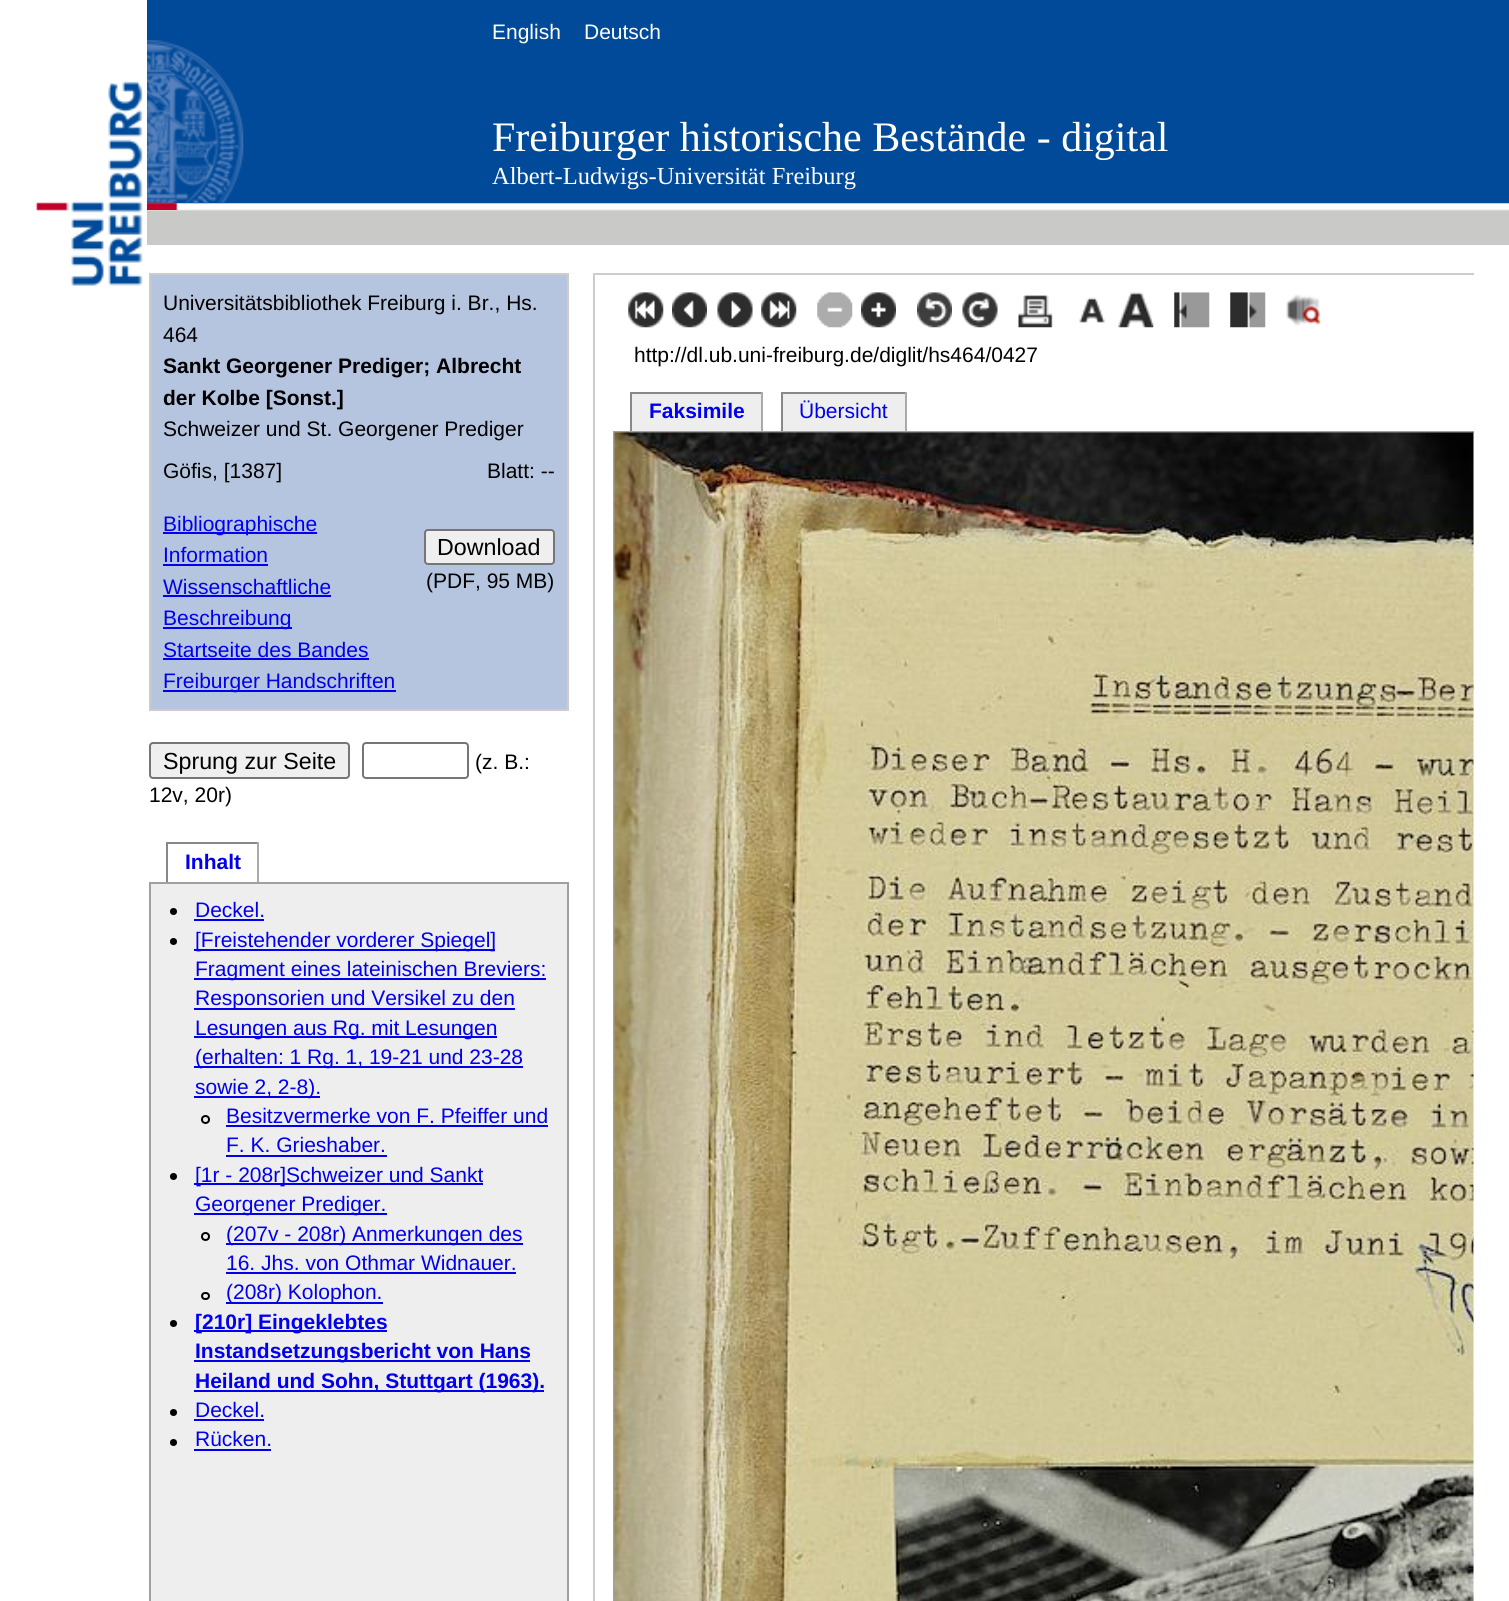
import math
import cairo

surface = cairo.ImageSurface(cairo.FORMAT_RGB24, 1509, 1601)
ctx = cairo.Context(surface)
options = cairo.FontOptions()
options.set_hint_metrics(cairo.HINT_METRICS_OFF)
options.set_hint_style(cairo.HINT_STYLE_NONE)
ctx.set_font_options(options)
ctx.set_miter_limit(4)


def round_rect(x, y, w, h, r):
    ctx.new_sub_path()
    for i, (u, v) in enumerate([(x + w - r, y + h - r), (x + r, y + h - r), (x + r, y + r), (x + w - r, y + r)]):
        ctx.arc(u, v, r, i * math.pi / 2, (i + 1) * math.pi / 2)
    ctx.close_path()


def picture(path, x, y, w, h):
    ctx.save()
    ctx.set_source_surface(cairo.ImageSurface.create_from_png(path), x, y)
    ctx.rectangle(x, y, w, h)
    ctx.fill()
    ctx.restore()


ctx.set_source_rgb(1, 1, 1)
ctx.paint()
picture("img1.png", 147, 203, 1362, 42)
ctx.set_source_rgb(0, 0.29, 0.6)
ctx.rectangle(147, 0, 1362, 203)
ctx.fill()
picture("img2.png", 36, 81, 107, 205)
picture("img3.png", 147, 40, 97, 170)
ctx.select_font_face("Liberation Sans")
ctx.set_font_size(21)
ctx.set_source_rgb(1, 1, 1)
ctx.move_to(492, 39)
ctx.show_text("English")
ctx.move_to(584, 39)
ctx.show_text("Deutsch")
ctx.select_font_face("Liberation Serif")
ctx.set_font_size(42)
ctx.move_to(492, 151)
ctx.show_text("Freiburger historische Bestände - digital")
ctx.set_font_size(24.5)
ctx.move_to(492, 184)
ctx.show_text("Albert-Ludwigs-Universität Freiburg")
ctx.set_source_rgb(0.714, 0.773, 0.875)
ctx.rectangle(150, 274, 418, 436)
ctx.fill_preserve()
ctx.set_source_rgb(0.8, 0.8, 0.8)
ctx.stroke()
ctx.select_font_face("Liberation Sans")
ctx.set_font_size(21)
ctx.set_source_rgb(0, 0, 0)
ctx.move_to(163, 310)
ctx.show_text("Universitätsbibliothek Freiburg i. Br., Hs.")
ctx.move_to(163, 342)
ctx.show_text("464")
ctx.select_font_face("Liberation Sans", cairo.FONT_SLANT_NORMAL, cairo.FONT_WEIGHT_BOLD)
ctx.move_to(163, 373)
ctx.show_text("Sankt Georgener Prediger; Albrecht")
ctx.move_to(163, 405)
ctx.show_text("der Kolbe [Sonst.]")
ctx.select_font_face("Liberation Sans")
ctx.move_to(163, 436)
ctx.show_text("Schweizer und St. Georgener Prediger")
ctx.move_to(163, 478)
ctx.show_text("Göfis, [1387]")
ctx.move_to(487, 478)
ctx.show_text("Blatt: --")
ctx.set_source_rgb(0, 0, 0.933)
ctx.rectangle(163, 532, 154, 2)
ctx.fill()
ctx.move_to(163, 531)
ctx.show_text("Bibliographische")
ctx.move_to(163, 562)
ctx.show_text("Information")
ctx.rectangle(163, 564, 105, 2)
ctx.fill()
ctx.set_source_rgb(0.937, 0.937, 0.937)
round_rect(425, 530, 129, 34, 3)
ctx.fill_preserve()
ctx.set_source_rgb(0.463, 0.463, 0.463)
ctx.stroke()
ctx.set_font_size(23.25)
ctx.set_source_rgb(0, 0, 0)
ctx.move_to(437, 555)
ctx.show_text("Download")
ctx.set_font_size(21)
ctx.move_to(426, 588)
ctx.show_text("(PDF, 95 MB)")
ctx.set_source_rgb(0, 0, 0.933)
ctx.move_to(163, 594)
ctx.show_text("Wissenschaftliche")
ctx.rectangle(163, 595, 168, 2)
ctx.fill()
ctx.rectangle(163, 627, 129, 2)
ctx.fill()
ctx.move_to(163, 625)
ctx.show_text("Beschreibung")
ctx.move_to(163, 657)
ctx.show_text("Startseite des Bandes")
ctx.rectangle(163, 658, 206, 2)
ctx.fill()
ctx.rectangle(163, 690, 233, 2)
ctx.fill()
ctx.move_to(163, 688)
ctx.show_text("Freiburger Handschriften")
ctx.set_source_rgb(0.937, 0.937, 0.937)
round_rect(150, 743, 199, 35, 3)
ctx.fill_preserve()
ctx.set_source_rgb(0.463, 0.463, 0.463)
ctx.stroke()
ctx.set_font_size(23.25)
ctx.set_source_rgb(0, 0, 0)
ctx.move_to(163, 769)
ctx.show_text("Sprung zur Seite")
round_rect(363, 743, 105, 35, 3)
ctx.set_source_rgb(0.463, 0.463, 0.463)
ctx.stroke()
ctx.set_font_size(21)
ctx.set_source_rgb(0, 0, 0)
ctx.move_to(475, 769)
ctx.show_text("(z. B.:")
ctx.move_to(149, 802)
ctx.show_text("12v, 20r)")
ctx.set_source_rgb(0.533, 0.533, 0.533)
ctx.rectangle(166, 842, 93, 2)
ctx.fill()
ctx.set_source_rgb(0.667, 0.667, 0.667)
ctx.rectangle(257, 842, 2, 40)
ctx.fill()
ctx.set_source_rgb(0.533, 0.533, 0.533)
ctx.rectangle(166, 842, 2, 40)
ctx.fill()
ctx.select_font_face("Liberation Sans", cairo.FONT_SLANT_NORMAL, cairo.FONT_WEIGHT_BOLD)
ctx.set_source_rgb(0, 0, 0.933)
ctx.move_to(185, 869)
ctx.show_text("Inhalt")
ctx.set_source_rgb(0.933, 0.933, 0.933)
ctx.rectangle(150, 883, 418, 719)
ctx.fill_preserve()
ctx.set_source_rgb(0.627, 0.627, 0.627)
ctx.stroke()
ctx.set_source_rgb(0, 0, 0)
ctx.arc(173.5, 911.5, 3.5, 0, 2 * math.pi)
ctx.fill()
ctx.select_font_face("Liberation Sans")
ctx.set_source_rgb(0, 0, 0.933)
ctx.move_to(195, 917)
ctx.show_text("Deckel.")
ctx.rectangle(194, 919, 70, 2)
ctx.fill()
ctx.set_source_rgb(0, 0, 0)
ctx.arc(173.5, 941.5, 3.5, 0, 2 * math.pi)
ctx.fill()
ctx.set_source_rgb(0, 0, 0.933)
ctx.rectangle(194, 949, 301, 2)
ctx.fill()
ctx.move_to(195, 947)
ctx.show_text("[Freistehender vorderer Spiegel]")
ctx.rectangle(194, 978, 352, 2)
ctx.fill()
ctx.move_to(195, 976)
ctx.show_text("Fragment eines lateinischen Breviers:")
ctx.rectangle(194, 1008, 321, 2)
ctx.fill()
ctx.move_to(195, 1005)
ctx.show_text("Responsorien und Versikel zu den")
ctx.rectangle(194, 1036, 303, 2)
ctx.fill()
ctx.move_to(195, 1035)
ctx.show_text("Lesungen aus Rg. mit Lesungen")
ctx.rectangle(194, 1066, 329, 2)
ctx.fill()
ctx.move_to(195, 1064)
ctx.show_text("(erhalten: 1 Rg. 1, 19-21 und 23-28")
ctx.rectangle(194, 1096, 126, 2)
ctx.fill()
ctx.move_to(195, 1094)
ctx.show_text("sowie 2, 2-8).")
ctx.new_path()
ctx.arc(205.5, 1119.5, 3.5, 0, 2 * math.pi)
ctx.set_source_rgb(0, 0, 0)
ctx.stroke()
ctx.set_source_rgb(0, 0, 0.933)
ctx.move_to(226, 1123)
ctx.show_text("Besitzvermerke von F. Pfeiffer und")
ctx.rectangle(226, 1125, 322, 2)
ctx.fill()
ctx.move_to(226, 1152)
ctx.show_text("F. K. Grieshaber.")
ctx.rectangle(226, 1155, 161, 2)
ctx.fill()
ctx.set_source_rgb(0, 0, 0)
ctx.arc(173.5, 1176.5, 3.5, 0, 2 * math.pi)
ctx.fill()
ctx.set_source_rgb(0, 0, 0.933)
ctx.rectangle(194, 1183, 289, 2)
ctx.fill()
ctx.move_to(195, 1182)
ctx.show_text("[1r - 208r]Schweizer und Sankt")
ctx.rectangle(194, 1213, 193, 2)
ctx.fill()
ctx.move_to(195, 1211)
ctx.show_text("Georgener Prediger.")
ctx.new_path()
ctx.arc(205.5, 1236.5, 3.5, 0, 2 * math.pi)
ctx.set_source_rgb(0, 0, 0)
ctx.stroke()
ctx.set_source_rgb(0, 0, 0.933)
ctx.rectangle(226, 1243, 297, 2)
ctx.fill()
ctx.move_to(226, 1241)
ctx.show_text("(207v - 208r) Anmerkungen des")
ctx.move_to(226, 1270)
ctx.show_text("16. Jhs. von Othmar Widnauer.")
ctx.rectangle(226, 1272, 290, 2)
ctx.fill()
round_rect(202, 1293, 7, 6, 3)
ctx.set_source_rgb(0, 0, 0)
ctx.stroke()
ctx.set_source_rgb(0, 0, 0.933)
ctx.rectangle(226, 1302, 157, 2)
ctx.fill()
ctx.move_to(226, 1299)
ctx.show_text("(208r) Kolophon.")
ctx.set_source_rgb(0, 0, 0)
ctx.new_path()
ctx.arc(173.5, 1323.5, 3.5, 0, 2 * math.pi)
ctx.fill()
ctx.set_source_rgb(0, 0, 0.933)
ctx.rectangle(194, 1330, 193, 2)
ctx.fill()
ctx.select_font_face("Liberation Sans", cairo.FONT_SLANT_NORMAL, cairo.FONT_WEIGHT_BOLD)
ctx.move_to(195, 1329)
ctx.show_text("[210r] Eingeklebtes")
ctx.rectangle(194, 1360, 336, 2)
ctx.fill()
ctx.move_to(195, 1358)
ctx.show_text("Instandsetzungsbericht von Hans")
ctx.rectangle(194, 1390, 350, 2)
ctx.fill()
ctx.move_to(195, 1388)
ctx.show_text("Heiland und Sohn, Stuttgart (1963).")
ctx.set_source_rgb(0, 0, 0)
ctx.new_path()
ctx.arc(173.5, 1412.5, 3.5, 0, 2 * math.pi)
ctx.fill()
ctx.select_font_face("Liberation Sans")
ctx.set_source_rgb(0, 0, 0.933)
ctx.move_to(195, 1417)
ctx.show_text("Deckel.")
ctx.rectangle(194, 1419, 70, 2)
ctx.fill()
ctx.set_source_rgb(0, 0, 0)
ctx.arc(173.5, 1442.5, 3.5, 0, 2 * math.pi)
ctx.fill()
ctx.set_source_rgb(0, 0, 0.933)
ctx.move_to(195, 1446)
ctx.show_text("Rücken.")
ctx.rectangle(194, 1449, 77, 2)
ctx.fill()
ctx.set_source_rgb(0.8, 0.8, 0.8)
ctx.rectangle(593, 273, 881, 2)
ctx.fill()
ctx.rectangle(593, 273, 2, 1328)
ctx.fill()
picture("img4.png", 628, 292, 36, 36)
picture("img5.png", 672, 292, 35, 36)
picture("img6.png", 717, 292, 36, 36)
picture("img7.png", 761, 292, 36, 36)
picture("img8.png", 817, 292, 36, 36)
picture("img9.png", 861, 292, 35, 36)
picture("img10.png", 917, 292, 35, 36)
picture("img11.png", 962, 292, 36, 36)
picture("img12.png", 1018, 295, 35, 33)
picture("img13.png", 1079, 297, 26, 26)
picture("img14.png", 1118, 292, 36, 36)
picture("img15.png", 1174, 292, 36, 36)
picture("img16.png", 1230, 292, 36, 36)
picture("img17.png", 1286, 294, 36, 32)
ctx.set_source_rgb(0, 0, 0)
ctx.move_to(634, 362)
ctx.show_text("http://dl.ub.uni-freiburg.de/diglit/hs464/0427")
ctx.set_source_rgb(0.933, 0.933, 0.933)
ctx.rectangle(632, 394, 129, 37)
ctx.fill()
ctx.set_source_rgb(0.533, 0.533, 0.533)
ctx.rectangle(630, 392, 133, 2)
ctx.fill()
ctx.set_source_rgb(0.667, 0.667, 0.667)
ctx.rectangle(761, 392, 2, 39)
ctx.fill()
ctx.set_source_rgb(0.533, 0.533, 0.533)
ctx.rectangle(630, 392, 2, 39)
ctx.fill()
ctx.select_font_face("Liberation Sans", cairo.FONT_SLANT_NORMAL, cairo.FONT_WEIGHT_BOLD)
ctx.set_source_rgb(0, 0, 0.933)
ctx.move_to(649, 418)
ctx.show_text("Faksimile")
ctx.set_source_rgb(0.933, 0.933, 0.933)
ctx.rectangle(783, 394, 122, 37)
ctx.fill()
ctx.set_source_rgb(0.533, 0.533, 0.533)
ctx.rectangle(781, 392, 126, 2)
ctx.fill()
ctx.set_source_rgb(0.667, 0.667, 0.667)
ctx.rectangle(905, 392, 2, 39)
ctx.fill()
ctx.set_source_rgb(0.533, 0.533, 0.533)
ctx.rectangle(781, 392, 2, 39)
ctx.fill()
ctx.select_font_face("Liberation Sans")
ctx.set_source_rgb(0, 0, 0.933)
ctx.move_to(799, 418)
ctx.show_text("Übersicht")
ctx.save()
ctx.rectangle(149, 273, 1325, 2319)
ctx.clip()
ctx.rectangle(614, 432, 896, 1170)
ctx.set_source_rgb(0.627, 0.627, 0.627)
ctx.stroke()
ctx.restore()
picture("img18.png", 614, 432, 860, 1169)
surface.write_to_png("page.png")
